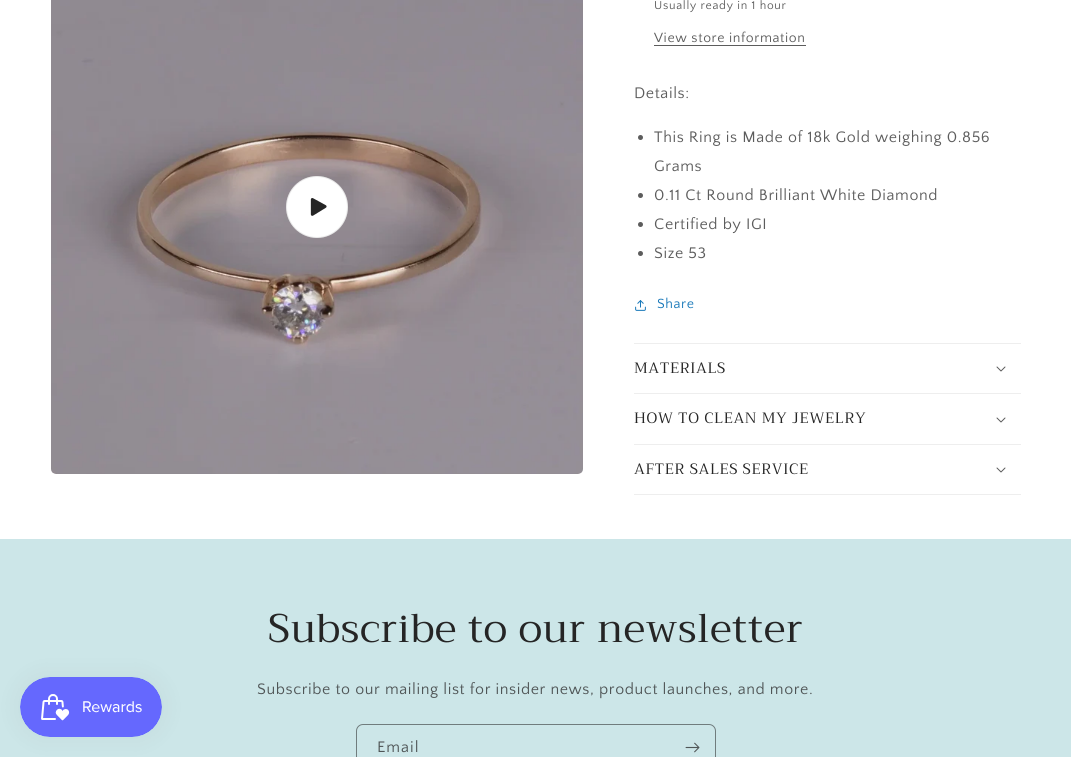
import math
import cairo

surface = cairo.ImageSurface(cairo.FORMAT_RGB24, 1071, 757)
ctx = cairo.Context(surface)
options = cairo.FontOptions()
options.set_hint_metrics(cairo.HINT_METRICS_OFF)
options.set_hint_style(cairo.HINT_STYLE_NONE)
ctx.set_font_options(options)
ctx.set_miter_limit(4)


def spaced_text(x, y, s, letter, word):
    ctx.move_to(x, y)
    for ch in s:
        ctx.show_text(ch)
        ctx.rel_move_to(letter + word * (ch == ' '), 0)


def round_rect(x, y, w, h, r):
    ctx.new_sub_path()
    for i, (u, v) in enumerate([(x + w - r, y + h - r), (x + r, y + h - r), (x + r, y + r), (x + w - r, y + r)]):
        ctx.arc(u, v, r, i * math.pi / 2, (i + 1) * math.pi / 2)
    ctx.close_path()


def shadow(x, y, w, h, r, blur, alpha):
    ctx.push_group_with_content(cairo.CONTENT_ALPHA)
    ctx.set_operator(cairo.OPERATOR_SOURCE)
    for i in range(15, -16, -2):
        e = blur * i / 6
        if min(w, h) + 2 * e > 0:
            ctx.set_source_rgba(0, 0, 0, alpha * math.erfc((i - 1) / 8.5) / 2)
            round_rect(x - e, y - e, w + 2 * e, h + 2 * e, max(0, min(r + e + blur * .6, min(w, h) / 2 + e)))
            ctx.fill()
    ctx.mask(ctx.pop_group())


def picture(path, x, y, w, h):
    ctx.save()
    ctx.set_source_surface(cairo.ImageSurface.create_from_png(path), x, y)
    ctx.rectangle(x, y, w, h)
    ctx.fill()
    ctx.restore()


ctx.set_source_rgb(1, 1, 1)
ctx.paint()
ctx.set_source_rgb(0.8, 0.902, 0.91)
ctx.rectangle(0, 539, 1071, 218)
ctx.fill()
ctx.set_source_rgb(0, 0, 0)
shadow(20, 677, 142, 60, 30, 12.5, 0.05)
picture("img1.png", 20, 677, 142, 60)
picture("img2.png", 51, 0, 532, 474)
ctx.set_source_rgb(1, 1, 1)
ctx.arc(317, 207, 31, 0, 2 * math.pi)
ctx.fill()
ctx.arc(317, 207, 30.5, 0, 2 * math.pi)
ctx.set_source_rgba(0.145, 0.145, 0.145, 0.1)
ctx.set_line_width(1)
ctx.stroke()
picture("img3.png", 310, 198, 17, 18)
ctx.select_font_face("Quattrocento Sans")
ctx.set_font_size(12)
ctx.set_source_rgb(0.361, 0.361, 0.361)
spaced_text(654, 9, "Usually ready in 1 hour", 0.7, 0)
ctx.set_font_size(14)
spaced_text(654, 42, "View store information", 0.6, 0)
ctx.rectangle(654, 45, 152, 1)
ctx.fill()
ctx.set_font_size(16)
spaced_text(634, 98, "Details:", 0.6, 0)
ctx.new_path()
ctx.arc(640.5, 137.5, 2.5, 0, 2 * math.pi)
ctx.fill()
spaced_text(654, 142, "This Ring is Made of 18k Gold weighing 0.856", 0.6, 0)
spaced_text(654, 171, "Grams", 0.6, 0)
ctx.new_path()
ctx.arc(640.5, 195.5, 2.5, 0, 2 * math.pi)
ctx.fill()
spaced_text(654, 200, "0.11 Ct Round Brilliant White Diamond", 0.6, 0)
ctx.new_path()
ctx.arc(640.5, 224.5, 2.5, 0, 2 * math.pi)
ctx.fill()
spaced_text(654, 229, "Certified by IGI", 0.6, 0)
ctx.new_path()
ctx.arc(640.5, 253.5, 2.5, 0, 2 * math.pi)
ctx.fill()
spaced_text(654, 258, "Size 53", 0.6, 0)
picture("img4.png", 635, 300, 11, 11)
ctx.set_font_size(14)
ctx.set_source_rgb(0.094, 0.471, 0.725)
spaced_text(657, 308, "Share", 0.6, 0)
ctx.set_source_rgb(0.933, 0.933, 0.933)
ctx.rectangle(634, 343, 387, 1)
ctx.fill()
ctx.rectangle(634, 393, 387, 1)
ctx.fill()
ctx.select_font_face("Trirong")
ctx.set_font_size(15)
ctx.set_source_rgb(0.145, 0.145, 0.145)
spaced_text(634, 373, "MATERIALS", 0.6, 0)
picture("img5.png", 996, 366, 10, 6)
ctx.set_source_rgb(0.933, 0.933, 0.933)
ctx.rectangle(634, 444, 387, 1)
ctx.fill()
ctx.set_source_rgb(0.145, 0.145, 0.145)
spaced_text(634, 423, "HOW TO CLEAN MY JEWELRY", 0.6, 0)
picture("img5.png", 996, 417, 10, 6)
ctx.set_source_rgb(0.933, 0.933, 0.933)
ctx.rectangle(634, 494, 387, 1)
ctx.fill()
ctx.set_source_rgb(0.145, 0.145, 0.145)
spaced_text(634, 474, "AFTER SALES SERVICE", 0.6, 0)
picture("img5.png", 996, 467, 10, 6)
ctx.set_font_size(40)
spaced_text(268, 642, "Subscribe to our newsletter", 0.6, 0)
ctx.select_font_face("Quattrocento Sans")
ctx.set_font_size(16)
ctx.set_source_rgb(0.31, 0.333, 0.337)
spaced_text(257, 694, "Subscribe to our mailing list for insider news, product launches, and more.", 0.6, 0)
round_rect(356.5, 724.5, 359, 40, 6.5)
ctx.set_source_rgb(0.439, 0.486, 0.49)
ctx.stroke()
ctx.set_source_rgb(0.31, 0.333, 0.337)
spaced_text(377, 752, "Email", 1, 0)
picture("img6.png", 685, 742, 15, 11)
surface.write_to_png("page.png")
